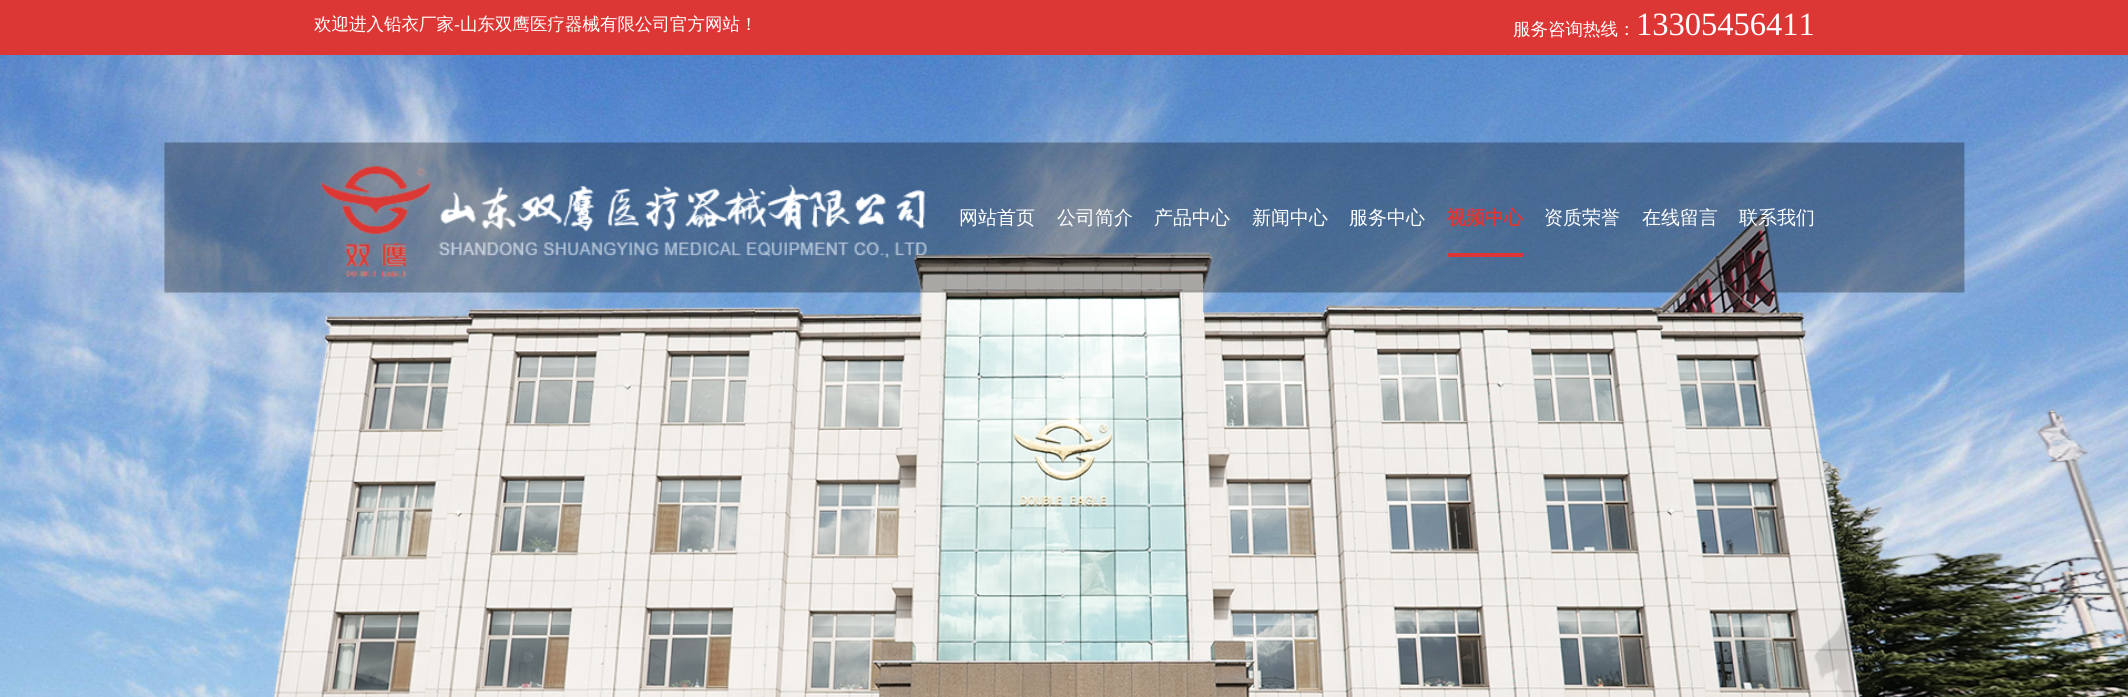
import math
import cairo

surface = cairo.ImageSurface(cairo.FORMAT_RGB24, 2128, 697)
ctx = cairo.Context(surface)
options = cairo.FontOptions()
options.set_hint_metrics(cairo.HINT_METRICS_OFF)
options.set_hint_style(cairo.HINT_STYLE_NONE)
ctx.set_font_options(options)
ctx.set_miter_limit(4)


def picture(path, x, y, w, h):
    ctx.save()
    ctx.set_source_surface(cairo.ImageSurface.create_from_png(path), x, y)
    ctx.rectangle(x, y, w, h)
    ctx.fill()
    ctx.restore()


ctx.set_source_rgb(0.867, 0.216, 0.208)
ctx.paint()
ctx.select_font_face("WenQuanYi Zen Hei Medium")
ctx.set_font_size(17.5)
ctx.set_source_rgb(1, 1, 1)
ctx.move_to(314, 30)
ctx.show_text("欢迎进入铅衣厂家")
ctx.select_font_face("Liberation Serif")
ctx.move_to(454, 30)
ctx.show_text("-")
ctx.select_font_face("WenQuanYi Zen Hei Medium")
ctx.move_to(460, 30)
ctx.show_text("山东双鹰医疗器械有限公司官方网站！")
ctx.move_to(1513, 35)
ctx.show_text("服务咨询热线：")
ctx.select_font_face("Liberation Serif")
ctx.set_font_size(32.5)
ctx.move_to(1636, 35)
ctx.show_text("13305456411")
picture("img1.png", 0, 55, 2128, 642)
picture("img2.png", 164, 142, 1801, 151)
ctx.select_font_face("WenQuanYi Zen Hei Medium")
ctx.set_font_size(19)
ctx.move_to(959, 224)
ctx.show_text("网站首页")
ctx.move_to(1057, 224)
ctx.show_text("公司简介")
ctx.move_to(1154, 224)
ctx.show_text("产品中心")
ctx.move_to(1252, 224)
ctx.show_text("新闻中心")
ctx.move_to(1349, 224)
ctx.show_text("服务中心")
ctx.select_font_face("WenQuanYi Zen Hei", cairo.FONT_SLANT_NORMAL, cairo.FONT_WEIGHT_BOLD)
ctx.set_source_rgb(0.867, 0.216, 0.208)
ctx.move_to(1447, 224)
ctx.show_text("视频中心")
ctx.rectangle(1448, 253, 75, 4)
ctx.fill()
ctx.select_font_face("WenQuanYi Zen Hei Medium")
ctx.set_source_rgb(1, 1, 1)
ctx.move_to(1544, 224)
ctx.show_text("资质荣誉")
ctx.move_to(1642, 224)
ctx.show_text("在线留言")
ctx.move_to(1739, 224)
ctx.show_text("联系我们")
surface.write_to_png("page.png")
